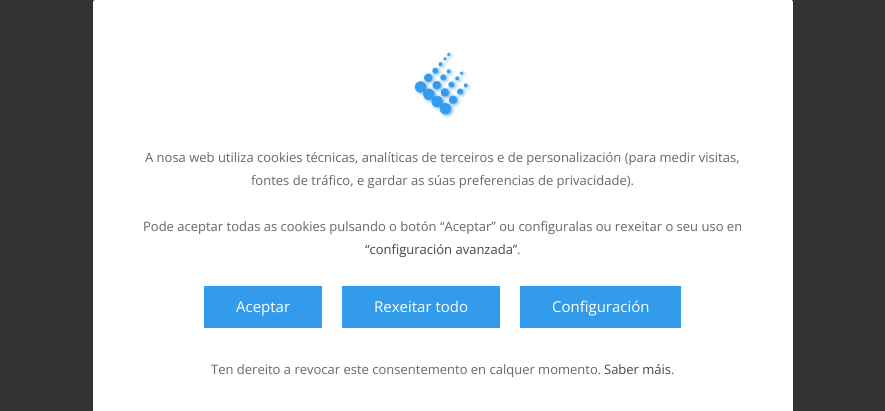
import math
import cairo

surface = cairo.ImageSurface(cairo.FORMAT_RGB24, 885, 411)
ctx = cairo.Context(surface)
options = cairo.FontOptions()
options.set_hint_metrics(cairo.HINT_METRICS_OFF)
options.set_hint_style(cairo.HINT_STYLE_NONE)
ctx.set_font_options(options)
ctx.set_miter_limit(4)


def round_rect(x, y, w, h, r):
    ctx.new_sub_path()
    for i, (u, v) in enumerate([(x + w - r, y + h - r), (x + r, y + h - r), (x + r, y + r), (x + w - r, y + r)]):
        ctx.arc(u, v, r, i * math.pi / 2, (i + 1) * math.pi / 2)
    ctx.close_path()


def shadow(x, y, w, h, r, blur, alpha):
    ctx.push_group_with_content(cairo.CONTENT_ALPHA)
    ctx.set_operator(cairo.OPERATOR_SOURCE)
    for i in range(15, -16, -2):
        e = blur * i / 6
        if min(w, h) + 2 * e > 0:
            ctx.set_source_rgba(0, 0, 0, alpha * math.erfc((i - 1) / 8.5) / 2)
            round_rect(x - e, y - e, w + 2 * e, h + 2 * e, max(0, min(r + e + blur * .6, min(w, h) / 2 + e)))
            ctx.fill()
    ctx.mask(ctx.pop_group())


def picture(path, x, y, w, h):
    ctx.save()
    ctx.set_source_surface(cairo.ImageSurface.create_from_png(path), x, y)
    ctx.rectangle(x, y, w, h)
    ctx.fill()
    ctx.restore()


ctx.set_source_rgb(0.2, 0.2, 0.2)
ctx.paint()
ctx.set_source_rgb(0.129, 0.161, 0.204)
shadow(93, 1, 700, 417, 2, 1.5, 0.75)
ctx.set_source_rgb(1, 1, 1)
ctx.new_path()
ctx.move_to(95, 0)
ctx.line_to(791, 0)
ctx.curve_to(792, 0, 793, 1, 793, 2)
ctx.line_to(793, 411)
ctx.line_to(93, 411)
ctx.line_to(93, 2)
ctx.curve_to(93, 1, 94, 0, 95, 0)
ctx.close_path()
ctx.fill()
picture("img1.png", 414, 51, 58, 67)
ctx.select_font_face("Open Sans")
ctx.set_font_size(13)
ctx.set_source_rgb(0.404, 0.404, 0.404)
ctx.move_to(145, 162)
ctx.show_text("A nosa web utiliza cookies técnicas, analíticas de terceiros e de personalización (para medir visitas,")
ctx.move_to(251, 185)
ctx.show_text("fontes de tráfico, e gardar as súas preferencias de privacidade).")
ctx.move_to(143, 231)
ctx.show_text("Pode aceptar todas as cookies pulsando o botón “Aceptar” ou configuralas ou rexeitar o seu uso en")
ctx.set_source_rgb(0.275, 0.275, 0.275)
ctx.move_to(365, 254)
ctx.show_text("“configuración avanzada”")
ctx.set_source_rgb(0.404, 0.404, 0.404)
ctx.move_to(517, 254)
ctx.show_text(".")
ctx.set_source_rgb(0.2, 0.608, 0.925)
ctx.rectangle(204, 286, 118, 42)
ctx.fill()
ctx.set_font_size(15)
ctx.set_source_rgb(1, 1, 1)
ctx.move_to(236, 312)
ctx.show_text("Aceptar")
ctx.set_source_rgb(0.2, 0.608, 0.925)
ctx.rectangle(342, 286, 158, 42)
ctx.fill()
ctx.set_source_rgb(1, 1, 1)
ctx.move_to(374, 312)
ctx.show_text("Rexeitar todo")
ctx.set_source_rgb(0.2, 0.608, 0.925)
ctx.rectangle(520, 286, 161, 42)
ctx.fill()
ctx.set_source_rgb(1, 1, 1)
ctx.move_to(552, 312)
ctx.show_text("Configuración")
ctx.set_font_size(13)
ctx.set_source_rgb(0.404, 0.404, 0.404)
ctx.move_to(211, 374)
ctx.show_text("Ten dereito a revocar este consentemento en calquer momento.")
ctx.set_source_rgb(0.275, 0.275, 0.275)
ctx.move_to(604, 374)
ctx.show_text("Saber máis")
ctx.set_source_rgb(0.404, 0.404, 0.404)
ctx.move_to(671, 374)
ctx.show_text(".")
surface.write_to_png("page.png")
